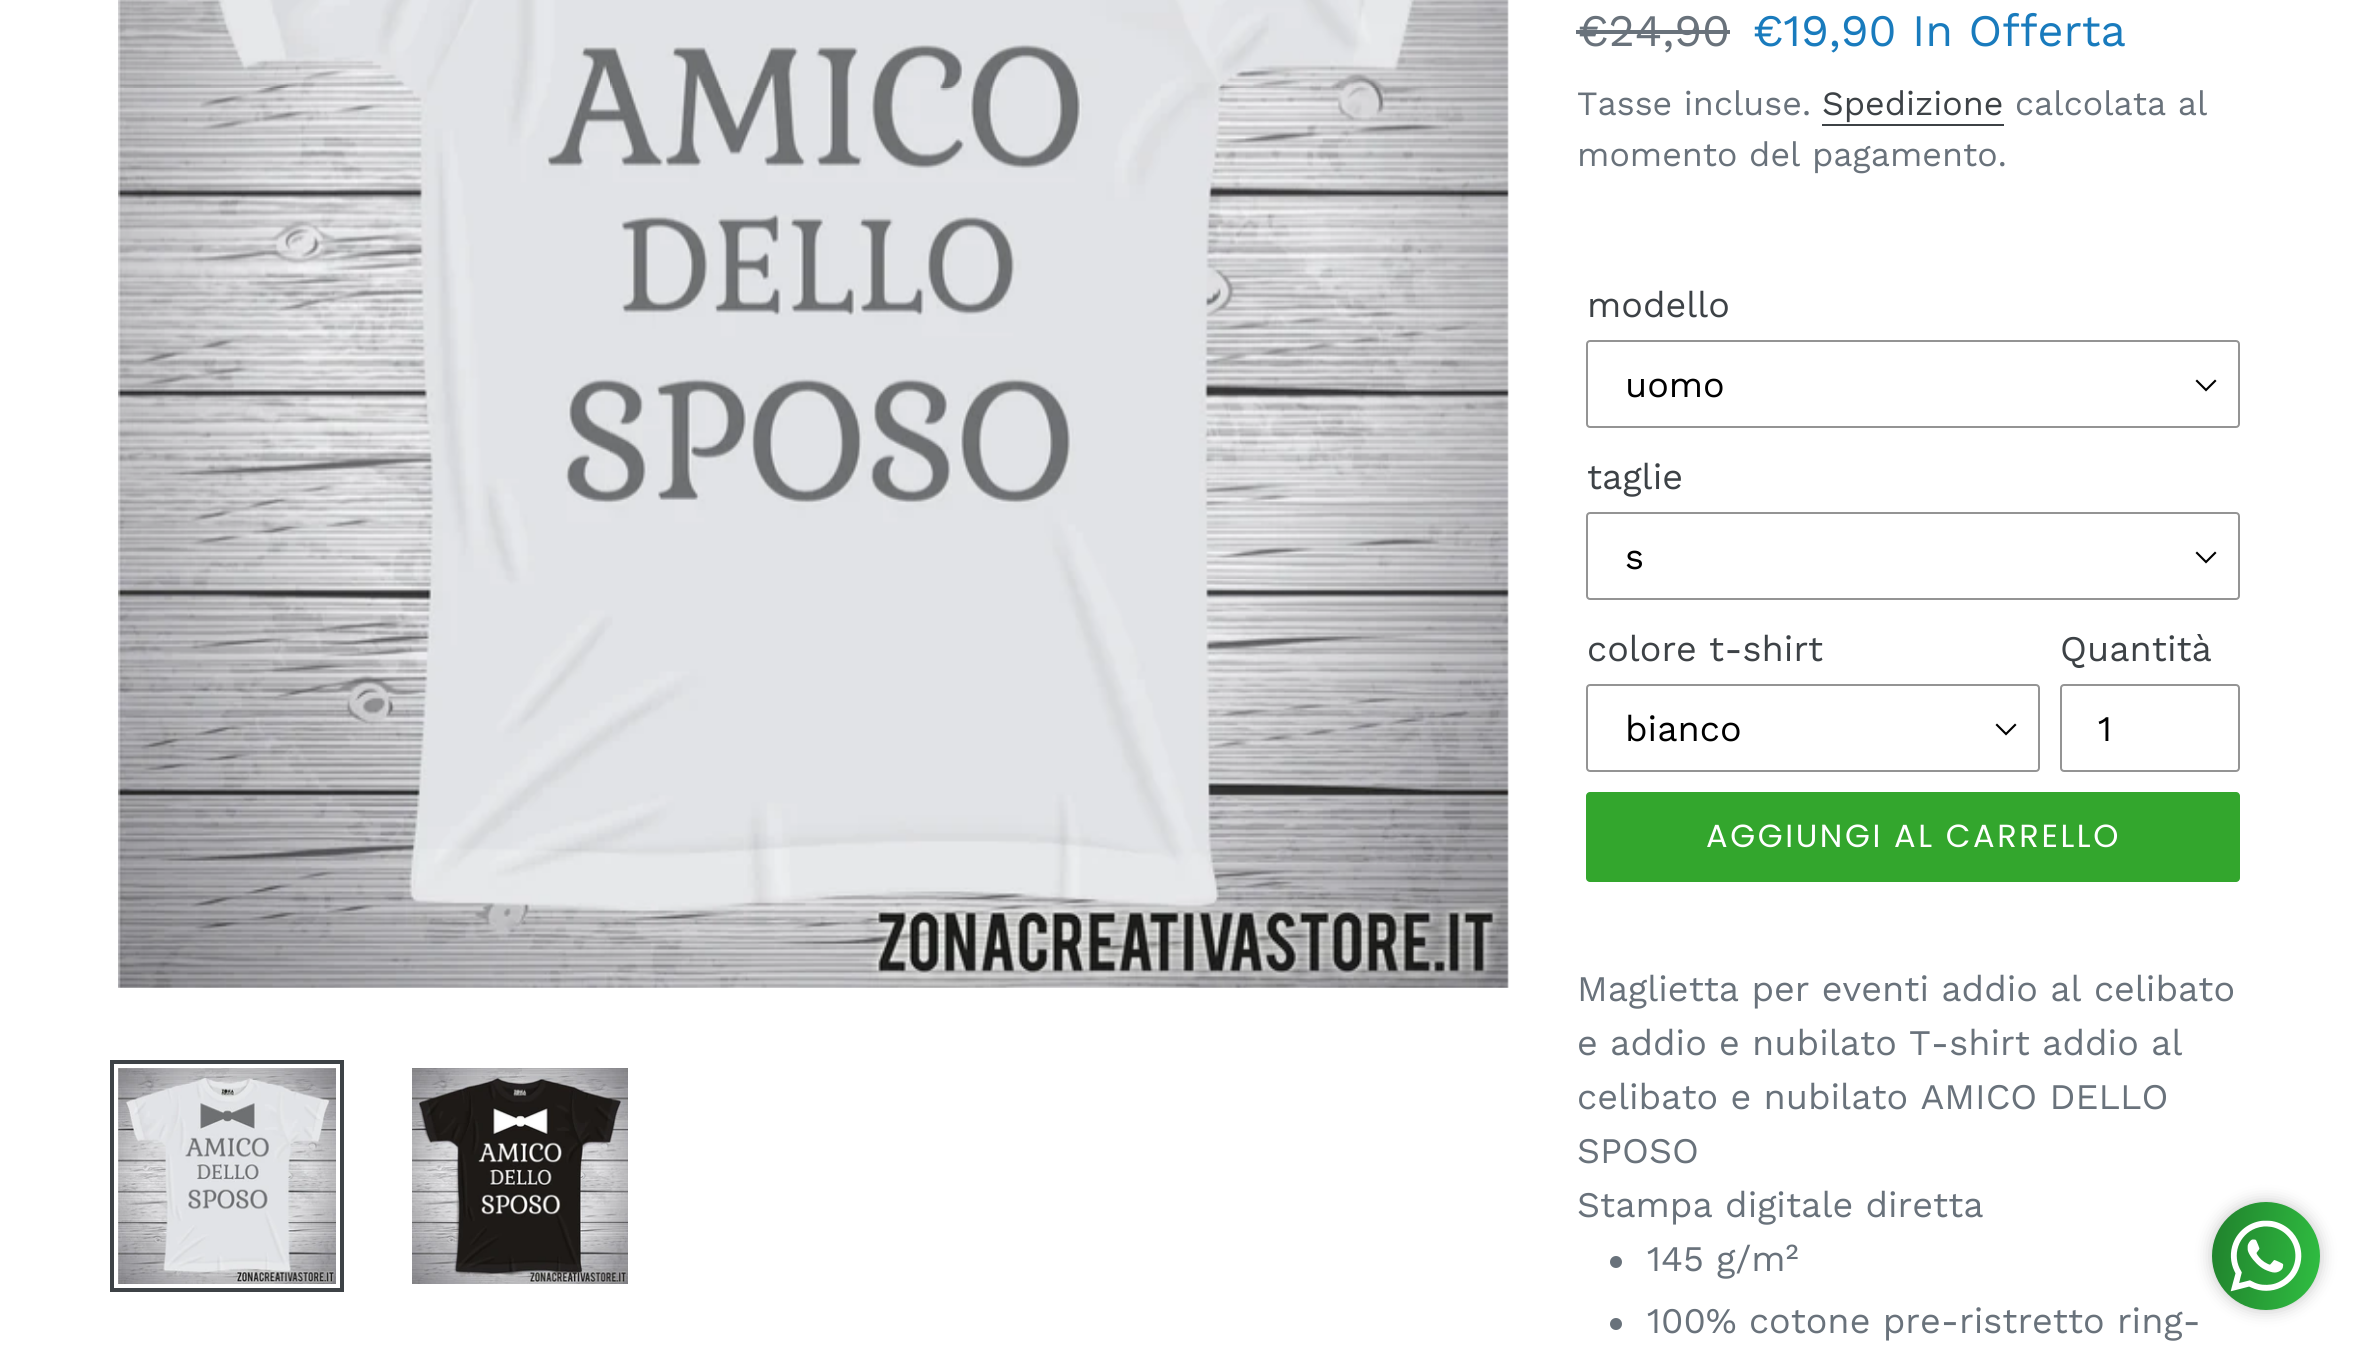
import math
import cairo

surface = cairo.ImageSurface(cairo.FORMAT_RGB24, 2360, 1349)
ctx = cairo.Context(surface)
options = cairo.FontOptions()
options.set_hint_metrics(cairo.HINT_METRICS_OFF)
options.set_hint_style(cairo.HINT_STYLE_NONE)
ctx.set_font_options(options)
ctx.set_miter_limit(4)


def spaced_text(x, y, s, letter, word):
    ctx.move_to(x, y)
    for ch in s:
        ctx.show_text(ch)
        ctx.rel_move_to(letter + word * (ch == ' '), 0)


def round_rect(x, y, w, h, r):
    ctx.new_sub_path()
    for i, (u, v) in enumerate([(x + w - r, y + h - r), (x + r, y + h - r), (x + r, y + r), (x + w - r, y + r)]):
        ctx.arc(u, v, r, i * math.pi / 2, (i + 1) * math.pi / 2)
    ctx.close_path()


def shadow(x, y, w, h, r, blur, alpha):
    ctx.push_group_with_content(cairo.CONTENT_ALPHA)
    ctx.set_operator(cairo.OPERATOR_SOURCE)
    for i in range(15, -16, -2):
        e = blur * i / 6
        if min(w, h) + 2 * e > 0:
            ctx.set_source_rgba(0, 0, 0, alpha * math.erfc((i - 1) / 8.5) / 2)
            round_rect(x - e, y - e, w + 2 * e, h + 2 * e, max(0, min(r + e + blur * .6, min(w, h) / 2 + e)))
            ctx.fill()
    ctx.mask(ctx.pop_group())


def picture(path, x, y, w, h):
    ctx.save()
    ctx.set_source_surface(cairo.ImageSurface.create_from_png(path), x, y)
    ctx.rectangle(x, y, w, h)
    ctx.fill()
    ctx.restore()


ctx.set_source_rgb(1, 1, 1)
ctx.paint()
picture("img1.png", 118, 0, 1391, 988)
ctx.rectangle(112, 1062, 230, 228)
ctx.set_source_rgb(0.239, 0.259, 0.275)
ctx.set_line_width(4)
ctx.stroke()
picture("img2.png", 118, 1068, 218, 216)
picture("img3.png", 412, 1068, 216, 216)
ctx.select_font_face("Work Sans")
ctx.set_font_size(45)
ctx.set_source_rgb(0.412, 0.447, 0.482)
ctx.move_to(1577, 46)
ctx.show_text("€24,90")
ctx.rectangle(1576, 30, 154, 4)
ctx.fill()
ctx.set_source_rgb(0.098, 0.482, 0.741)
ctx.move_to(1752, 46)
ctx.show_text("€19,90 In Offerta")
ctx.set_font_size(34)
ctx.set_source_rgb(0.412, 0.447, 0.482)
ctx.move_to(1577, 115)
ctx.show_text("Tasse incluse.")
ctx.set_source_rgb(0.239, 0.259, 0.275)
ctx.move_to(1822, 115)
ctx.show_text("Spedizione")
ctx.rectangle(1822, 124, 182, 2)
ctx.fill()
ctx.set_source_rgb(0.412, 0.447, 0.482)
ctx.move_to(2015, 115)
ctx.show_text("calcolata al")
ctx.move_to(1577, 166)
ctx.show_text("momento del pagamento.")
ctx.set_font_size(36)
ctx.set_source_rgb(0.239, 0.259, 0.275)
ctx.move_to(1587, 317)
ctx.show_text("modello")
ctx.set_source_rgb(0, 0, 0)
ctx.new_path()
ctx.move_to(2206, 391.5)
ctx.line_to(2195.5, 381)
ctx.line_to(2197, 379.5)
ctx.line_to(2206, 388.5)
ctx.line_to(2215, 379.5)
ctx.line_to(2216.5, 381)
ctx.close_path()
ctx.fill()
round_rect(1587, 341, 652, 86, 3)
ctx.set_source_rgb(0.58, 0.58, 0.58)
ctx.set_line_width(2)
ctx.stroke()
ctx.set_source_rgb(0, 0, 0)
ctx.move_to(1625, 397)
ctx.show_text("uomo")
ctx.set_source_rgb(0.239, 0.259, 0.275)
ctx.move_to(1587, 489)
ctx.show_text("taglie")
ctx.set_source_rgb(0, 0, 0)
ctx.new_path()
ctx.move_to(2206, 563.5)
ctx.line_to(2195.5, 553)
ctx.line_to(2197, 551.5)
ctx.line_to(2206, 560.5)
ctx.line_to(2215, 551.5)
ctx.line_to(2216.5, 553)
ctx.close_path()
ctx.fill()
round_rect(1587, 513, 652, 86, 3)
ctx.set_source_rgb(0.58, 0.58, 0.58)
ctx.stroke()
ctx.set_source_rgb(0, 0, 0)
ctx.move_to(1625, 569)
ctx.show_text("s")
ctx.set_source_rgb(0.239, 0.259, 0.275)
ctx.move_to(1587, 661)
ctx.show_text("colore t-shirt")
ctx.set_source_rgb(0, 0, 0)
ctx.new_path()
ctx.move_to(2006, 735.5)
ctx.line_to(1995.5, 725)
ctx.line_to(1997, 723.5)
ctx.line_to(2006, 732.5)
ctx.line_to(2015, 723.5)
ctx.line_to(2016.5, 725)
ctx.close_path()
ctx.fill()
round_rect(1587, 685, 452, 86, 3)
ctx.set_source_rgb(0.58, 0.58, 0.58)
ctx.stroke()
ctx.set_source_rgb(0, 0, 0)
ctx.move_to(1625, 741)
ctx.show_text("bianco")
ctx.set_source_rgb(0.239, 0.259, 0.275)
ctx.move_to(2060, 661)
ctx.show_text("Quantità")
round_rect(2061, 685, 178, 86, 3)
ctx.set_source_rgb(0.58, 0.58, 0.58)
ctx.stroke()
ctx.set_source_rgb(0, 0, 0)
ctx.move_to(2098, 741)
ctx.show_text("1")
ctx.set_source_rgb(0.2, 0.651, 0.176)
round_rect(1586, 792, 654, 90, 4)
ctx.fill()
ctx.select_font_face("Poppins")
ctx.set_font_size(32)
ctx.set_source_rgb(1, 1, 1)
spaced_text(1706, 847, "AGGIUNGI AL CARRELLO", 2.6, 0)
ctx.select_font_face("Work Sans")
ctx.set_font_size(36)
ctx.set_source_rgb(0.412, 0.447, 0.482)
ctx.move_to(1577, 1001)
ctx.show_text("Maglietta per eventi addio al celibato")
ctx.move_to(1577, 1055)
ctx.show_text("e addio e nubilato T-shirt addio al")
ctx.move_to(1577, 1109)
ctx.show_text("celibato e nubilato AMICO DELLO")
ctx.move_to(1577, 1163)
ctx.show_text("SPOSO")
ctx.move_to(1577, 1217)
ctx.show_text("Stampa digitale diretta")
ctx.new_path()
ctx.arc(1616, 1262, 6, 0, 2 * math.pi)
ctx.fill()
ctx.move_to(1647, 1271)
ctx.show_text("145 g/m²")
ctx.new_path()
ctx.arc(1616, 1324, 6, 0, 2 * math.pi)
ctx.fill()
ctx.move_to(1647, 1333)
ctx.show_text("100% cotone pre-ristretto ring-")
ctx.set_source_rgb(0.761, 0.761, 0.761)
shadow(2212, 1202, 108, 108, 54, 8, 1)
picture("img4.png", 2212, 1202, 108, 108)
surface.write_to_png("page.png")
